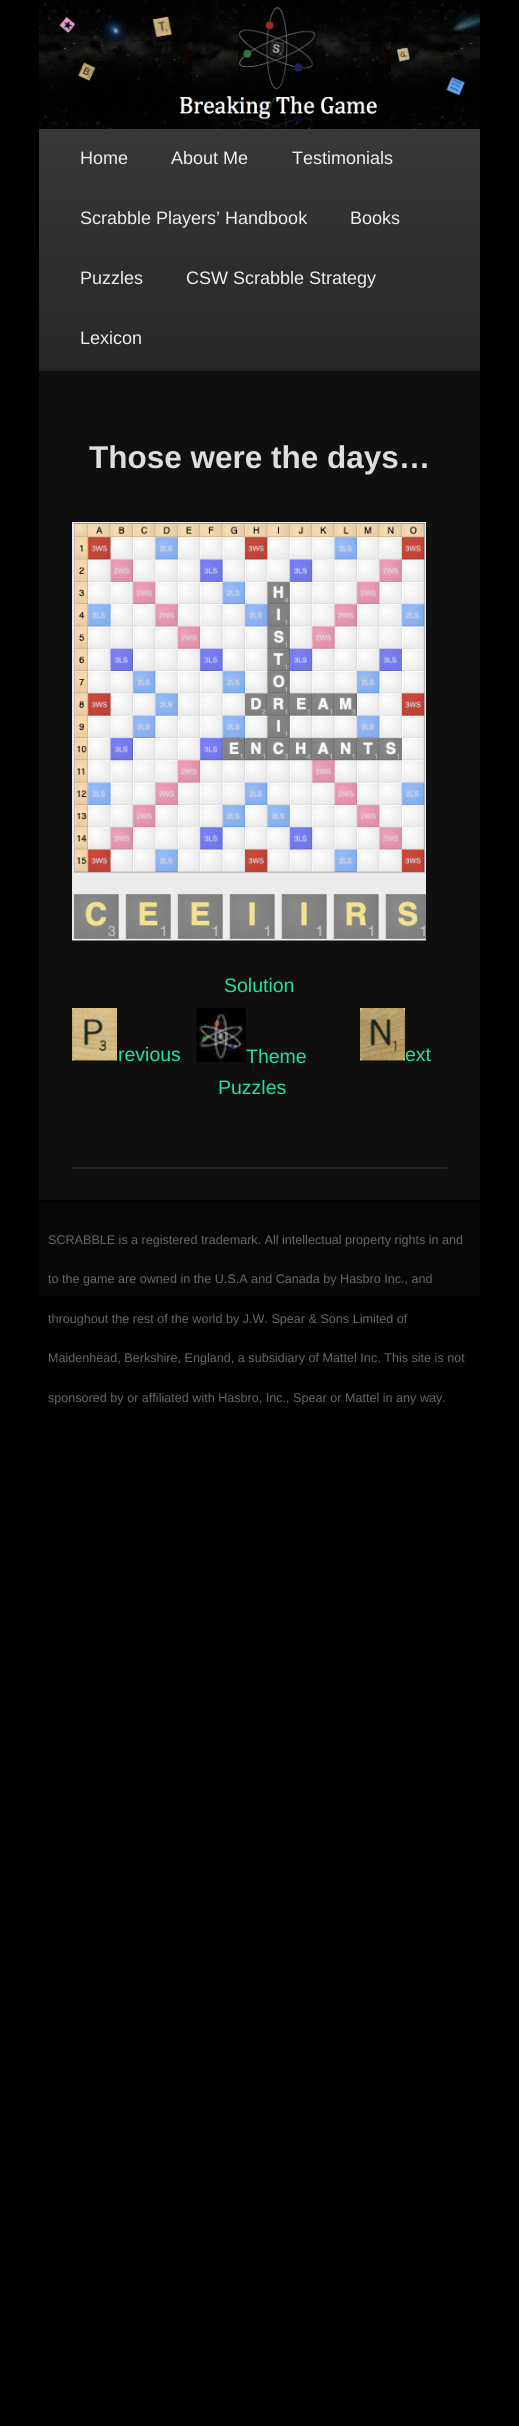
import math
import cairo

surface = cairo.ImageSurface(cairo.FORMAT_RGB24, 519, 2426)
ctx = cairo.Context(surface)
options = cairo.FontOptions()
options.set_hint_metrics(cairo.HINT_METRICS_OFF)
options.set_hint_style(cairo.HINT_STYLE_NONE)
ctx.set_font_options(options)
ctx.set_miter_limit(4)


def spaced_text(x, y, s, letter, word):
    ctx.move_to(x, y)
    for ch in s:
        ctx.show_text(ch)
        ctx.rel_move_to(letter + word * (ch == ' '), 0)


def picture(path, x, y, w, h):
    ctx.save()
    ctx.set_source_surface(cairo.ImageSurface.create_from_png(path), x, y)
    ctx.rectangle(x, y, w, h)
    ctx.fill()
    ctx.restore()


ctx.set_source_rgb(0, 0, 0)
ctx.paint()
ctx.set_source_rgb(0.059, 0.059, 0.059)
ctx.rectangle(39, 371, 441, 829)
ctx.fill()
picture("img1.png", 39, 0, 441, 129)
gradient = cairo.LinearGradient(260, 129, 260, 369)
gradient.add_color_stop_rgba(0, 0.22, 0.22, 0.22, 1)
gradient.add_color_stop_rgba(1, 0.153, 0.153, 0.153, 1)
ctx.set_source(gradient)
ctx.rectangle(39, 129, 441, 240)
ctx.fill()
ctx.set_source_rgb(0.133, 0.133, 0.133)
ctx.rectangle(39, 369, 441, 2)
ctx.fill()
ctx.select_font_face("Liberation Sans")
ctx.set_font_size(18)
ctx.set_source_rgb(0.933, 0.933, 0.933)
ctx.move_to(80, 164)
ctx.show_text("Home")
ctx.move_to(171, 164)
ctx.show_text("About Me")
ctx.move_to(292, 164)
ctx.show_text("Testimonials")
ctx.move_to(80, 224)
ctx.show_text("Scrabble Players’ Handbook")
ctx.move_to(350, 224)
ctx.show_text("Books")
ctx.move_to(80, 284)
ctx.show_text("Puzzles")
ctx.move_to(186, 284)
ctx.show_text("CSW Scrabble Strategy")
ctx.move_to(80, 344)
ctx.show_text("Lexicon")
ctx.set_source_rgb(0.133, 0.133, 0.133)
ctx.rectangle(72, 1167, 375, 2)
ctx.fill()
ctx.select_font_face("Liberation Sans", cairo.FONT_SLANT_NORMAL, cairo.FONT_WEIGHT_BOLD)
ctx.set_font_size(31.5)
ctx.set_source_rgb(0.867, 0.867, 0.867)
ctx.move_to(89, 468)
ctx.show_text("Those were the days…")
picture("img2.png", 72, 522, 354, 419)
ctx.select_font_face("Liberation Sans")
ctx.set_font_size(19.5)
ctx.set_source_rgb(0.122, 0.894, 0.62)
ctx.move_to(224, 992)
ctx.show_text("Solution")
picture("img3.png", 72, 1008, 45, 53)
ctx.move_to(118, 1061)
ctx.show_text("revious")
picture("img4.png", 196, 1008, 50, 54)
ctx.move_to(246, 1063)
ctx.show_text("Theme")
ctx.move_to(218, 1094)
ctx.show_text("Puzzles")
picture("img5.png", 360, 1008, 45, 53)
ctx.move_to(405, 1061)
ctx.show_text("ext")
ctx.set_source_rgb(0.024, 0.024, 0.024)
ctx.rectangle(39, 1202, 441, 94)
ctx.fill()
ctx.set_font_size(12.6)
ctx.set_source_rgb(0.4, 0.4, 0.4)
spaced_text(48, 1244, "SCRABBLE is a registered trademark. All intellectual property rights in and", 0, -0.1)
ctx.move_to(48, 1283)
ctx.show_text("to the game are owned in the U.S.A and Canada by Hasbro Inc., and")
ctx.move_to(48, 1323)
ctx.show_text("throughout the rest of the world by J.W. Spear & Sons Limited of")
ctx.move_to(48, 1362)
ctx.show_text("Maidenhead, Berkshire, England, a subsidiary of Mattel Inc. This site is not")
ctx.move_to(48, 1402)
ctx.show_text("sponsored by or affiliated with Hasbro, Inc., Spear or Mattel in any way.")
surface.write_to_png("page.png")
